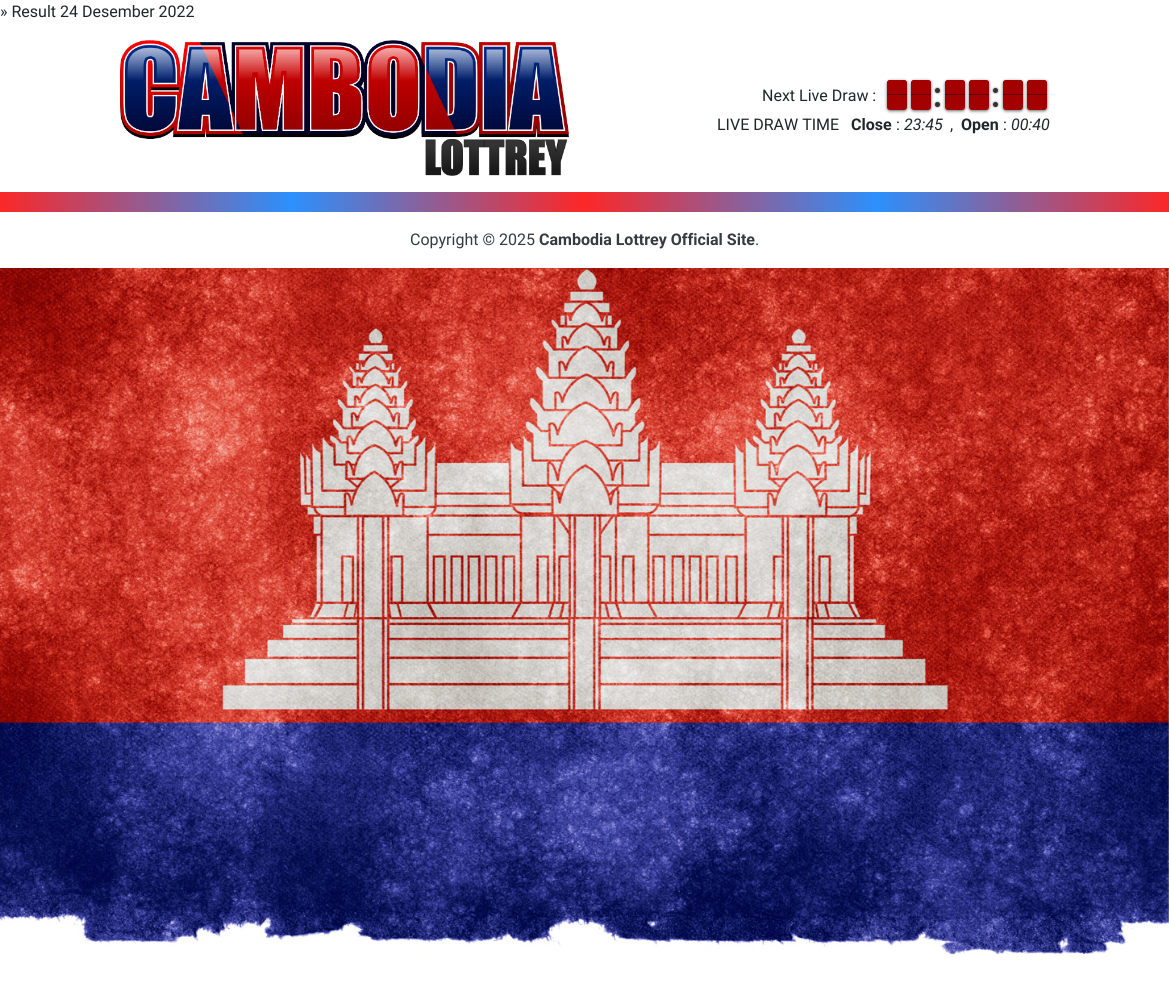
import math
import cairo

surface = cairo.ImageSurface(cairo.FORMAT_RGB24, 1169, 983)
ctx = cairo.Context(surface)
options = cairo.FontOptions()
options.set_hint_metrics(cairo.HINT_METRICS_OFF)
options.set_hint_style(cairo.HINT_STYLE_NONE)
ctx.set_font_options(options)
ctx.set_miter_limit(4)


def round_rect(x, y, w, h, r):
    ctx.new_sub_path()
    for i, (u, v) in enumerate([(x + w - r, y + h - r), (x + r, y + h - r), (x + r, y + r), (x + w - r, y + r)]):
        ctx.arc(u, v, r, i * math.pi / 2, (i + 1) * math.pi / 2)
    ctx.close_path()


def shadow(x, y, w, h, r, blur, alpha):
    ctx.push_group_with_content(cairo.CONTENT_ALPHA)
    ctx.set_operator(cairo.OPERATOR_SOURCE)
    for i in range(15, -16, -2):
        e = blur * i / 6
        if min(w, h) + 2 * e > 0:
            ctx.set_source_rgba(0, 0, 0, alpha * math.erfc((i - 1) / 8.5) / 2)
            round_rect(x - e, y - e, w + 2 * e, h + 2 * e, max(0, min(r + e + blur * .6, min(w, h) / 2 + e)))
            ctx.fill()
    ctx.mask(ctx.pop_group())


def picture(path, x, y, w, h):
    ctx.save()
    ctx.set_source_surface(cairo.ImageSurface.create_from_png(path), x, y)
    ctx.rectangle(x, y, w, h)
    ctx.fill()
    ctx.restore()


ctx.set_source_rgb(1, 1, 1)
ctx.paint()
picture("img1.png", 0, 0, 1169, 983)
ctx.select_font_face("Roboto")
ctx.set_font_size(16)
ctx.set_source_rgb(0.129, 0.145, 0.161)
ctx.move_to(0, 17)
ctx.show_text("» Result 24 Desember 2022")
ctx.set_source_rgb(1, 1, 1)
ctx.rectangle(0, 26, 1169, 166)
ctx.fill()
picture("img2.png", 0, 192, 1169, 10)
picture("img3.png", 120, 40, 449, 136)
ctx.set_source_rgb(0.129, 0.145, 0.161)
ctx.move_to(762, 101)
ctx.show_text("Next Live Draw :")
ctx.set_source_rgb(0, 0, 0)
shadow(887, 81, 20, 30, 3, 1.5, 0.6)
ctx.set_source_rgb(0.639, 0, 0)
round_rect(887, 80, 20, 30, 3)
ctx.fill()
ctx.set_source_rgb(0, 0, 0)
shadow(911, 81, 20, 30, 3, 1.5, 0.6)
ctx.set_source_rgb(0.639, 0, 0)
ctx.new_path()
ctx.move_to(890, 80)
ctx.line_to(904, 80)
ctx.curve_to(905.5, 80, 907, 81.5, 907, 83)
ctx.line_to(907, 95)
ctx.line_to(887, 95)
ctx.line_to(887, 83)
ctx.curve_to(887, 81.5, 888.5, 80, 890, 80)
ctx.close_path()
ctx.fill()
ctx.set_source_rgba(0, 0, 0, 0.4)
ctx.rectangle(887, 94, 20, 1)
ctx.fill()
ctx.set_source_rgb(0.639, 0, 0)
round_rect(911, 80, 20, 30, 3)
ctx.fill()
ctx.new_path()
ctx.move_to(914, 80)
ctx.line_to(928, 80)
ctx.curve_to(929.5, 80, 931, 81.5, 931, 83)
ctx.line_to(931, 95)
ctx.line_to(911, 95)
ctx.line_to(911, 83)
ctx.curve_to(911, 81.5, 912.5, 80, 914, 80)
ctx.close_path()
ctx.fill()
ctx.set_source_rgba(0, 0, 0, 0.4)
ctx.rectangle(911, 94, 20, 1)
ctx.fill()
ctx.set_source_rgb(0, 0, 0)
shadow(935, 88, 5, 5, 2.5, 1, 0.5)
ctx.set_source_rgb(0.196, 0.204, 0.204)
ctx.arc(937.5, 90.5, 2.5, 0, 2 * math.pi)
ctx.fill()
ctx.set_source_rgb(0, 0, 0)
shadow(935, 102, 5, 5, 2.5, 1, 0.5)
ctx.set_source_rgb(0.196, 0.204, 0.204)
ctx.arc(937.5, 104.5, 2.5, 0, 2 * math.pi)
ctx.fill()
ctx.set_source_rgb(0, 0, 0)
shadow(945, 81, 20, 30, 3, 1.5, 0.6)
ctx.set_source_rgb(0.639, 0, 0)
round_rect(945, 80, 20, 30, 3)
ctx.fill()
ctx.set_source_rgb(0, 0, 0)
shadow(969, 81, 20, 30, 3, 1.5, 0.6)
ctx.set_source_rgb(0.639, 0, 0)
ctx.new_path()
ctx.move_to(948, 80)
ctx.line_to(962, 80)
ctx.curve_to(963.5, 80, 965, 81.5, 965, 83)
ctx.line_to(965, 95)
ctx.line_to(945, 95)
ctx.line_to(945, 83)
ctx.curve_to(945, 81.5, 946.5, 80, 948, 80)
ctx.close_path()
ctx.fill()
ctx.set_source_rgba(0, 0, 0, 0.4)
ctx.rectangle(945, 94, 20, 1)
ctx.fill()
ctx.set_source_rgb(0.639, 0, 0)
round_rect(969, 80, 20, 30, 3)
ctx.fill()
ctx.new_path()
ctx.move_to(972, 80)
ctx.line_to(986, 80)
ctx.curve_to(987.5, 80, 989, 81.5, 989, 83)
ctx.line_to(989, 95)
ctx.line_to(969, 95)
ctx.line_to(969, 83)
ctx.curve_to(969, 81.5, 970.5, 80, 972, 80)
ctx.close_path()
ctx.fill()
ctx.set_source_rgba(0, 0, 0, 0.4)
ctx.rectangle(969, 94, 20, 1)
ctx.fill()
ctx.set_source_rgb(0, 0, 0)
shadow(993, 88, 5, 5, 2.5, 1, 0.5)
ctx.set_source_rgb(0.196, 0.204, 0.204)
ctx.arc(995.5, 90.5, 2.5, 0, 2 * math.pi)
ctx.fill()
ctx.set_source_rgb(0, 0, 0)
shadow(993, 102, 5, 5, 2.5, 1, 0.5)
ctx.set_source_rgb(0.196, 0.204, 0.204)
ctx.arc(995.5, 104.5, 2.5, 0, 2 * math.pi)
ctx.fill()
ctx.set_source_rgb(0, 0, 0)
shadow(1003, 81, 20, 30, 3, 1.5, 0.6)
ctx.set_source_rgb(0.639, 0, 0)
round_rect(1003, 80, 20, 30, 3)
ctx.fill()
ctx.set_source_rgb(0, 0, 0)
shadow(1027, 81, 20, 30, 3, 1.5, 0.6)
ctx.set_source_rgb(0.639, 0, 0)
ctx.new_path()
ctx.move_to(1006, 80)
ctx.line_to(1020, 80)
ctx.curve_to(1021.5, 80, 1023, 81.5, 1023, 83)
ctx.line_to(1023, 95)
ctx.line_to(1003, 95)
ctx.line_to(1003, 83)
ctx.curve_to(1003, 81.5, 1004.5, 80, 1006, 80)
ctx.close_path()
ctx.fill()
ctx.set_source_rgba(0, 0, 0, 0.4)
ctx.rectangle(1003, 94, 20, 1)
ctx.fill()
ctx.set_source_rgb(0.639, 0, 0)
round_rect(1027, 80, 20, 30, 3)
ctx.fill()
ctx.new_path()
ctx.move_to(1030, 80)
ctx.line_to(1044, 80)
ctx.curve_to(1045.5, 80, 1047, 81.5, 1047, 83)
ctx.line_to(1047, 95)
ctx.line_to(1027, 95)
ctx.line_to(1027, 83)
ctx.curve_to(1027, 81.5, 1028.5, 80, 1030, 80)
ctx.close_path()
ctx.fill()
ctx.set_source_rgba(0, 0, 0, 0.4)
ctx.rectangle(1027, 94, 20, 1)
ctx.fill()
ctx.set_source_rgb(0.129, 0.145, 0.161)
ctx.move_to(717, 130)
ctx.show_text("LIVE DRAW TIME")
ctx.select_font_face("Roboto", cairo.FONT_SLANT_NORMAL, cairo.FONT_WEIGHT_BOLD)
ctx.move_to(851, 130)
ctx.show_text("Close")
ctx.select_font_face("Roboto")
ctx.move_to(896, 130)
ctx.show_text(":")
ctx.select_font_face("Roboto", cairo.FONT_SLANT_ITALIC)
ctx.move_to(904, 130)
ctx.show_text("23:45")
ctx.select_font_face("Roboto")
ctx.move_to(950, 130)
ctx.show_text(",")
ctx.select_font_face("Roboto", cairo.FONT_SLANT_NORMAL, cairo.FONT_WEIGHT_BOLD)
ctx.move_to(961, 130)
ctx.show_text("Open")
ctx.select_font_face("Roboto")
ctx.move_to(1003, 130)
ctx.show_text(":")
ctx.select_font_face("Roboto", cairo.FONT_SLANT_ITALIC)
ctx.move_to(1011, 130)
ctx.show_text("00:40")
ctx.set_source_rgb(1, 1, 1)
ctx.rectangle(0, 212, 1169, 56)
ctx.fill()
picture("img4.png", 0, 202, 1169, 10)
ctx.select_font_face("Roboto")
ctx.set_source_rgb(0.204, 0.227, 0.251)
ctx.move_to(410, 245)
ctx.show_text("Copyright © 2025")
ctx.select_font_face("Roboto", cairo.FONT_SLANT_NORMAL, cairo.FONT_WEIGHT_BOLD)
ctx.move_to(539, 245)
ctx.show_text("Cambodia Lottrey Official Site")
ctx.select_font_face("Roboto")
ctx.move_to(755, 245)
ctx.show_text(".")
surface.write_to_png("page.png")
